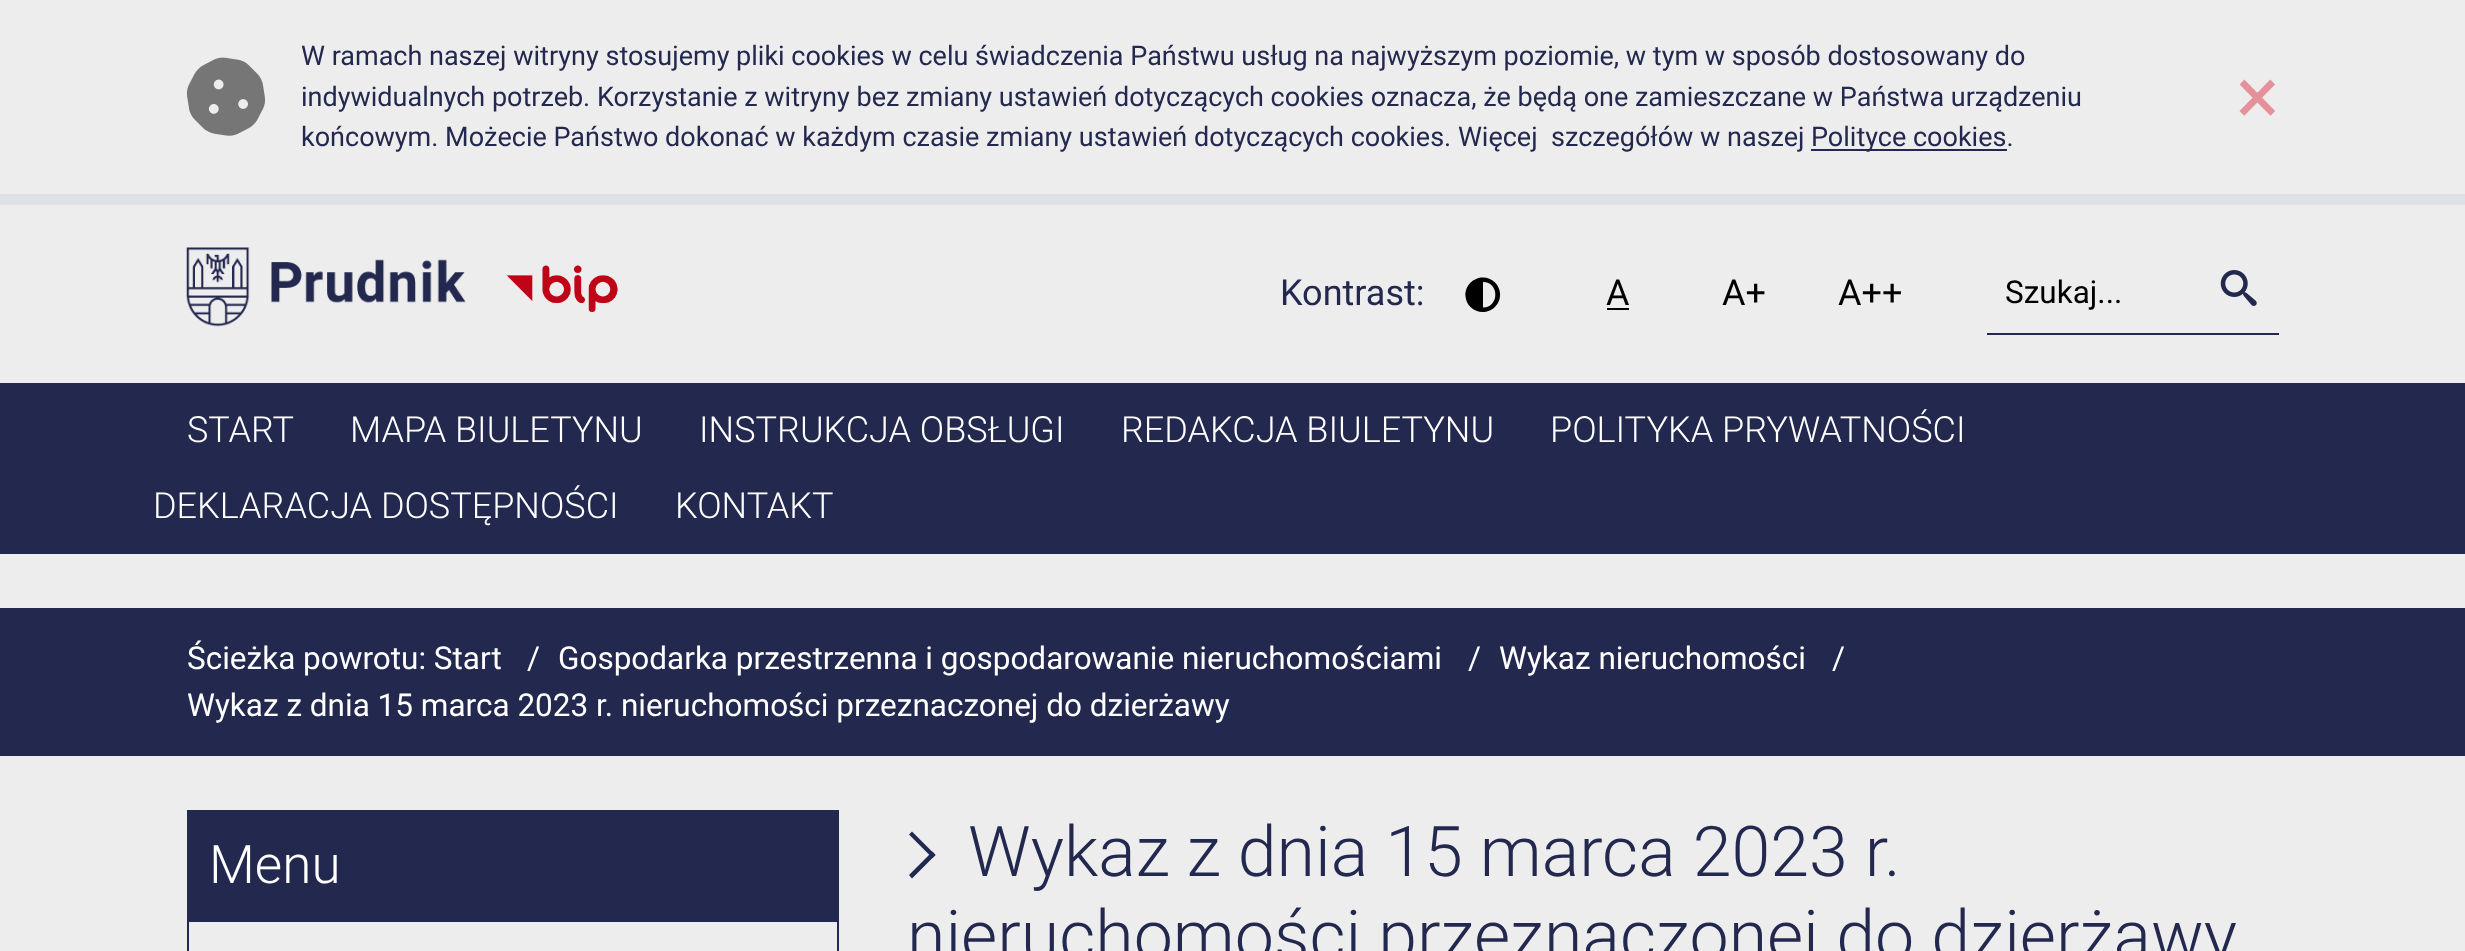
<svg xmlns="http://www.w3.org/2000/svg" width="2465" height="951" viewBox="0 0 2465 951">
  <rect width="100%" height="100%" fill="rgb(237,237,237)"/>
  <rect x="0" y="194" width="2465" height="11" fill="rgb(222,226,230)"/>
  <image x="186" y="57" width="80" height="79" href="pic1.png"/>
  <g font-family="Roboto" font-size="27" fill="rgb(35,40,79)">
    <text xml:space="preserve"><tspan x="301" y="65">W ramach naszej witryny stosujemy pliki cookies w celu świadczenia Państwu usług na najwyższym poziomie, w tym w sposób dostosowany do</tspan><tspan x="301" y="106">indywidualnych potrzeb. Korzystanie z witryny bez zmiany ustawień dotyczących cookies oznacza, że będą one zamieszczane w Państwa urządzeniu</tspan><tspan x="301" y="146">końcowym. Możecie Państwo dokonać w każdym czasie zmiany ustawień dotyczących cookies. Więcej  szczegółów w naszej</tspan></text>
  </g>
  <rect x="1811" y="149" width="196" height="2" fill="rgb(35,40,79)"/>
  <text x="1811" y="146" font-family="Roboto" font-size="27" fill="rgb(35,40,79)">Polityce cookies.</text>
  <text x="2236" y="124" font-family="Roboto" font-size="81" fill="rgb(229,145,153)">×</text>
  <image x="186" y="247" width="280" height="80" href="pic2.png"/>
  <image x="506" y="265" width="112" height="47" href="pic3.png"/>
  <text x="1280" y="305" font-family="Roboto" font-size="36" fill="rgb(35,40,79)">Kontrast:</text>
  <path d="M1470.5 307C1467.5 304 1466 300.5 1465.5 296.5C1464 280.5 1483.5 271 1495 282.5C1498 285.5 1499.5 289 1500 293C1501.5 309 1482 318.5 1470.5 307ZM1483 307.5C1499.5 307.5 1499.5 282 1483 282Z" fill="rgb(0,0,0)"/>
  <text x="1606" y="305" font-family="Roboto" font-size="36" fill="rgb(0,0,0)">A</text>
  <rect x="1607" y="308" width="22" height="2" fill="rgb(0,0,0)"/>
  <g font-family="Roboto" font-size="36" fill="rgb(0,0,0)">
    <text x="1722" y="305">A+</text>
    <text x="1838" y="305">A++</text>
  </g>
  <rect x="1987" y="333" width="292" height="2" fill="rgb(35,40,79)"/>
  <text x="2005" y="303" font-family="Roboto" font-size="31.5" fill="rgb(0,0,0)">Szukaj...</text>
  <image x="2220" y="270" width="37" height="36" href="pic4.png"/>
  <rect x="0" y="383" width="2465" height="171" fill="rgb(35,40,79)"/>
  <g font-family="Roboto" font-size="36" font-weight="300" fill="rgb(255,255,255)">
    <text x="187" y="442">START</text>
    <text x="350" y="442">MAPA BIULETYNU</text>
    <text x="699" y="442">INSTRUKCJA OBSŁUGI</text>
    <text x="1121" y="442">REDAKCJA BIULETYNU</text>
    <text x="1550" y="442">POLITYKA PRYWATNOŚCI</text>
    <text x="153" y="518">DEKLARACJA DOSTĘPNOŚCI</text>
    <text x="675" y="518">KONTAKT</text>
  </g>
  <rect x="0" y="608" width="2465" height="148" fill="rgb(35,40,79)"/>
  <g font-family="Roboto" font-size="31.5" fill="rgb(255,255,255)">
    <text x="187" y="669">Ścieżka powrotu: Start</text>
    <text x="527" y="669">/</text>
    <text x="558" y="669">Gospodarka przestrzenna i gospodarowanie nieruchomościami</text>
    <text x="1468" y="669">/</text>
    <text x="1499" y="669">Wykaz nieruchomości</text>
    <text x="1832" y="669">/</text>
    <text x="187" y="716">Wykaz z dnia 15 marca 2023 r. nieruchomości przeznaczonej do dzierżawy</text>
  </g>
  <rect x="187" y="810" width="652" height="110" fill="rgb(35,40,79)"/>
  <text x="209" y="883" font-family="Roboto" font-size="53" font-weight="300" fill="rgb(255,255,255)">Menu</text>
  <rect x="188" y="921" width="650" height="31" fill="none" stroke="rgb(35,40,79)" stroke-width="2"/>
  <path d="M909 834.5L912 831.5L935.5 855L932.5 858Z" fill="rgb(35,40,79)"/>
  <path d="M909 875L932.5 851.5L935.5 855L912 878.5Z" fill="rgb(35,40,79)"/>
  <g font-family="Roboto" font-size="69.9" font-weight="300" fill="rgb(35,40,79)">
    <text x="968" y="876">Wykaz z dnia 15 marca 2023 r.</text>
    <text x="907" y="960">nieruchomości przeznaczonej do dzierżawy</text>
  </g>
</svg>
